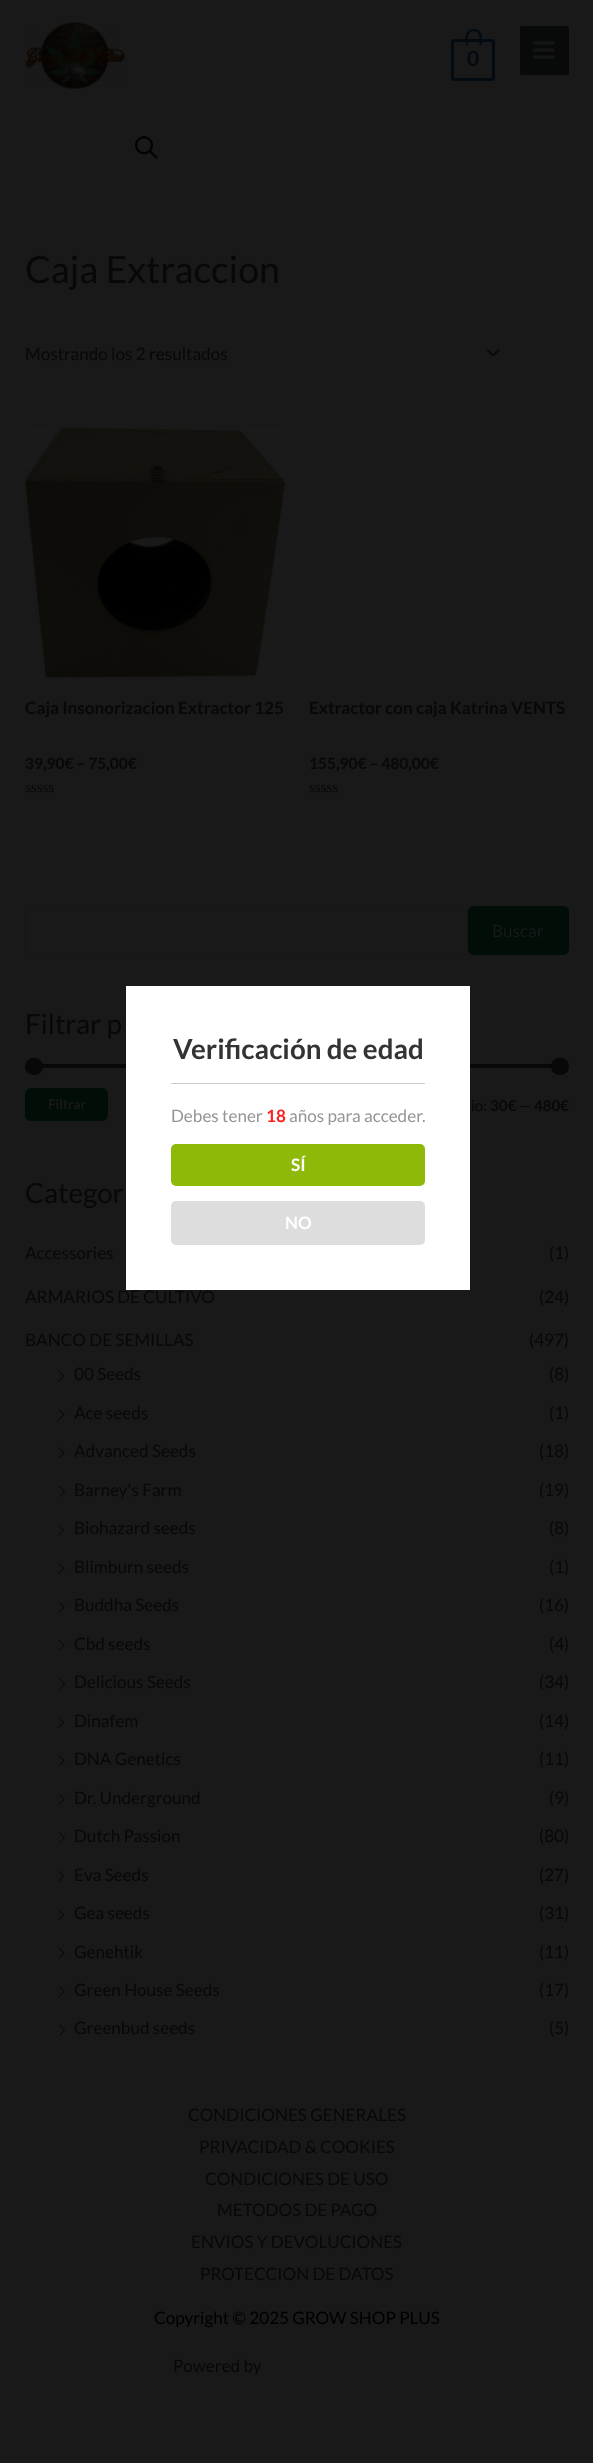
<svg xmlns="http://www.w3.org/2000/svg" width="593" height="2463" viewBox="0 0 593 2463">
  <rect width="100%" height="100%" fill="rgb(25,25,25)"/>
  <image x="25" y="22" width="100" height="67" href="pic1.png"/>
  <rect x="452.5" y="40.5" width="41" height="39" rx="2.5" fill="none" stroke="rgb(3,11,18)" stroke-width="3"/>
  <path d="M473.5 29C478 29 482 32.5 482 37V45H465.5V37C465.5 32.5 469 29 473.5 29ZM473.5 31C481 31 479.5 40.5 479.5 45H468C468 40.5 466.5 31 473.5 31Z" fill="rgb(3,11,18)" fill-rule="evenodd"/>
  <text x="467" y="66" font-family="Lato" font-size="21" font-weight="bold" fill="rgb(3,11,18)">0</text>
  <rect x="520" y="26" width="49" height="49" rx="2.5" fill="rgb(8,9,9)"/>
  <image x="533" y="41" width="22" height="18" href="pic2.png"/>
  <image x="135" y="136" width="23" height="23" href="pic3.png"/>
  <text x="25" y="283" font-family="Lato" font-size="37.5" fill="rgb(8,8,8)">Caja Extraccion</text>
  <text x="25" y="360" font-family="Lato" font-size="17.1" fill="rgb(8,8,8)">Mostrando los 2 resultados</text>
  <image x="486" y="349" width="14" height="7" href="pic4.png"/>
  <image x="25" y="427" width="260" height="251" href="pic5.png"/>
  <text x="25" y="714" font-family="Lato" font-size="17.1" font-weight="bold" fill="rgb(8,8,8)">Caja Insonorizacion Extractor 125</text>
  <text x="25" y="769" font-family="Lato" font-size="15.5" font-weight="bold" fill="rgb(8,8,8)">39,90€ – 75,00€</text>
  <text x="25" y="792" font-family="Liberation Serif" font-size="15" fill="rgb(8,8,8)">sssss</text>
  <text x="309" y="714" font-family="Lato" font-size="17.1" font-weight="bold" fill="rgb(8,8,8)">Extractor con caja Katrina VENTS</text>
  <text x="309" y="769" font-family="Lato" font-size="15.5" font-weight="bold" fill="rgb(8,8,8)">155,90€ – 480,00€</text>
  <text x="309" y="792" font-family="Liberation Serif" font-size="15" fill="rgb(8,8,8)">sssss</text>
  <rect x="25.5" y="906.5" width="442" height="48" fill="none" stroke="rgb(22,22,22)"/>
  <rect x="468" y="906" width="101" height="49" rx="6" fill="rgb(1,14,7)"/>
  <text x="492" y="937" font-family="Lato" font-size="17.1" fill="rgb(25,25,25)">Buscar</text>
  <text x="25" y="1034" font-family="Lato" font-size="27.75" fill="rgb(8,8,8)">Filtrar p</text>
  <rect x="34" y="1064" width="526" height="4" fill="rgb(8,8,8)"/>
  <rect x="25" y="1058" width="18" height="17" rx="8.5" fill="rgb(8,8,8)"/>
  <rect x="551" y="1058" width="18" height="17" rx="8.5" fill="rgb(8,8,8)"/>
  <rect x="25" y="1088" width="83" height="33" rx="6" fill="rgb(1,14,7)"/>
  <text x="48" y="1109" font-family="Lato" font-size="13.5" font-weight="bold" fill="rgb(25,25,25)">Filtrar</text>
  <text x="471" y="1111" font-family="Lato" font-size="15" fill="rgb(8,8,8)">io:</text>
  <text x="490" y="1111" font-family="Lato" font-size="15" font-weight="bold" fill="rgb(8,8,8)">30€</text>
  <text x="519" y="1111" font-family="Lato" font-size="15" fill="rgb(8,8,8)">—</text>
  <text x="534" y="1111" font-family="Lato" font-size="15" font-weight="bold" fill="rgb(8,8,8)">480€</text>
  <text x="25" y="1203" font-family="Lato" font-size="27.75" fill="rgb(8,8,8)">Categor</text>
  <g font-family="Lato" font-size="17.1" fill="rgb(8,8,8)">
    <text x="25" y="1259">Accessories</text>
    <text x="549" y="1259">(1)</text>
    <text x="25" y="1303">ARMARIOS DE CULTIVO</text>
    <text x="539" y="1303">(24)</text>
    <text x="25" y="1346">BANCO DE SEMILLAS</text>
    <text x="529" y="1346">(497)</text>
  </g>
  <image x="58" y="1370" width="6" height="12" href="pic6.png"/>
  <g font-family="Lato" font-size="17.1" fill="rgb(8,8,8)">
    <text x="74" y="1380">00 Seeds</text>
    <text x="549" y="1380">(8)</text>
  </g>
  <image x="58" y="1409" width="7" height="11" href="pic7.png"/>
  <g font-family="Lato" font-size="17.1" fill="rgb(8,8,8)">
    <text x="74" y="1419">Ace seeds</text>
    <text x="549" y="1419">(1)</text>
  </g>
  <image x="58" y="1447" width="7" height="12" href="pic8.png"/>
  <g font-family="Lato" font-size="17.1" fill="rgb(8,8,8)">
    <text x="74" y="1457">Advanced Seeds</text>
    <text x="539" y="1457">(18)</text>
  </g>
  <image x="59" y="1486" width="6" height="11" href="pic9.png"/>
  <g font-family="Lato" font-size="17.1" fill="rgb(8,8,8)">
    <text x="74" y="1496">Barney's Farm</text>
    <text x="539" y="1496">(19)</text>
  </g>
  <image x="58" y="1524" width="6" height="12" href="pic10.png"/>
  <g font-family="Lato" font-size="17.1" fill="rgb(8,8,8)">
    <text x="74" y="1534">Biohazard seeds</text>
    <text x="549" y="1534">(8)</text>
  </g>
  <image x="58" y="1563" width="7" height="11" href="pic11.png"/>
  <g font-family="Lato" font-size="17.1" fill="rgb(8,8,8)">
    <text x="74" y="1573">Blimburn seeds</text>
    <text x="549" y="1573">(1)</text>
  </g>
  <image x="58" y="1601" width="7" height="12" href="pic12.png"/>
  <g font-family="Lato" font-size="17.1" fill="rgb(8,8,8)">
    <text x="74" y="1611">Buddha Seeds</text>
    <text x="539" y="1611">(16)</text>
  </g>
  <image x="59" y="1640" width="6" height="11" href="pic13.png"/>
  <g font-family="Lato" font-size="17.1" fill="rgb(8,8,8)">
    <text x="74" y="1650">Cbd seeds</text>
    <text x="549" y="1650">(4)</text>
  </g>
  <image x="59" y="1678" width="6" height="12" href="pic14.png"/>
  <g font-family="Lato" font-size="17.1" fill="rgb(8,8,8)">
    <text x="74" y="1688">Delicious Seeds</text>
    <text x="539" y="1688">(34)</text>
  </g>
  <image x="58" y="1717" width="6" height="11" href="pic15.png"/>
  <g font-family="Lato" font-size="17.1" fill="rgb(8,8,8)">
    <text x="74" y="1727">Dinafem</text>
    <text x="539" y="1727">(14)</text>
  </g>
  <image x="58" y="1755" width="7" height="12" href="pic16.png"/>
  <g font-family="Lato" font-size="17.1" fill="rgb(8,8,8)">
    <text x="74" y="1765">DNA Genetics</text>
    <text x="539" y="1765">(11)</text>
  </g>
  <image x="58" y="1794" width="7" height="11" href="pic17.png"/>
  <g font-family="Lato" font-size="17.1" fill="rgb(8,8,8)">
    <text x="74" y="1804">Dr. Underground</text>
    <text x="549" y="1804">(9)</text>
  </g>
  <image x="59" y="1832" width="6" height="12" href="pic18.png"/>
  <g font-family="Lato" font-size="17.1" fill="rgb(8,8,8)">
    <text x="74" y="1842">Dutch Passion</text>
    <text x="539" y="1842">(80)</text>
  </g>
  <image x="58" y="1870" width="6" height="12" href="pic19.png"/>
  <g font-family="Lato" font-size="17.1" fill="rgb(8,8,8)">
    <text x="74" y="1881">Eva Seeds</text>
    <text x="539" y="1881">(27)</text>
  </g>
  <image x="58" y="1909" width="7" height="12" href="pic20.png"/>
  <g font-family="Lato" font-size="17.1" fill="rgb(8,8,8)">
    <text x="74" y="1919">Gea seeds</text>
    <text x="539" y="1919">(31)</text>
  </g>
  <image x="58" y="1947" width="7" height="12" href="pic21.png"/>
  <g font-family="Lato" font-size="17.1" fill="rgb(8,8,8)">
    <text x="74" y="1958">Genehtik</text>
    <text x="539" y="1958">(11)</text>
  </g>
  <image x="58" y="1986" width="7" height="11" href="pic22.png"/>
  <g font-family="Lato" font-size="17.1" fill="rgb(8,8,8)">
    <text x="74" y="1996">Green House Seeds</text>
    <text x="539" y="1996">(17)</text>
  </g>
  <image x="59" y="2024" width="6" height="12" href="pic23.png"/>
  <g font-family="Lato" font-size="17.1" fill="rgb(8,8,8)">
    <text x="74" y="2034">Greenbud seeds</text>
    <text x="549" y="2034">(5)</text>
    <text x="188" y="2121">CONDICIONES GENERALES</text>
    <text x="199" y="2153">PRIVACIDAD &amp; COOKIES</text>
    <text x="205" y="2185">CONDICIONES DE USO</text>
    <text x="217" y="2216">METODOS DE PAGO</text>
    <text x="191" y="2248">ENVIOS Y DEVOLUCIONES</text>
    <text x="200" y="2280">PROTECCION DE DATOS</text>
  </g>
  <text x="154" y="2324" font-family="Lato" font-size="17.1" fill="rgb(0,0,0)">Copyright © 2025 GROW SHOP PLUS</text>
  <text x="173" y="2372" font-family="Lato" font-size="17.1" fill="rgb(8,8,8)">Powered by</text>
  <rect x="126" y="986" width="344" height="304" fill="rgb(255,255,255)"/>
  <rect x="171" y="1083" width="254" height="1" fill="rgb(204,204,204)"/>
  <text x="173" y="1059" font-family="Lato" font-size="27.75" font-weight="bold" fill="rgb(51,51,51)">Verificación de edad</text>
  <text x="171" y="1122" font-family="Lato" font-size="17.1" fill="rgb(149,149,149)">Debes tener</text>
  <text x="266" y="1122" font-family="Lato" font-size="17.1" font-weight="bold" fill="rgb(255,31,31)">18</text>
  <text x="289" y="1122" font-family="Lato" font-size="17.1" fill="rgb(149,149,149)">años para acceder.</text>
  <rect x="171" y="1144" width="254" height="42" rx="5" fill="rgb(142,185,8)"/>
  <text x="291" y="1171" font-family="Lato" font-size="17.1" font-weight="bold" fill="rgb(255,255,255)">SÍ</text>
  <rect x="171" y="1201" width="254" height="44" rx="5" fill="rgb(221,221,221)"/>
  <text x="285" y="1229" font-family="Lato" font-size="17.1" font-weight="bold" fill="rgb(255,255,255)">NO</text>
</svg>
